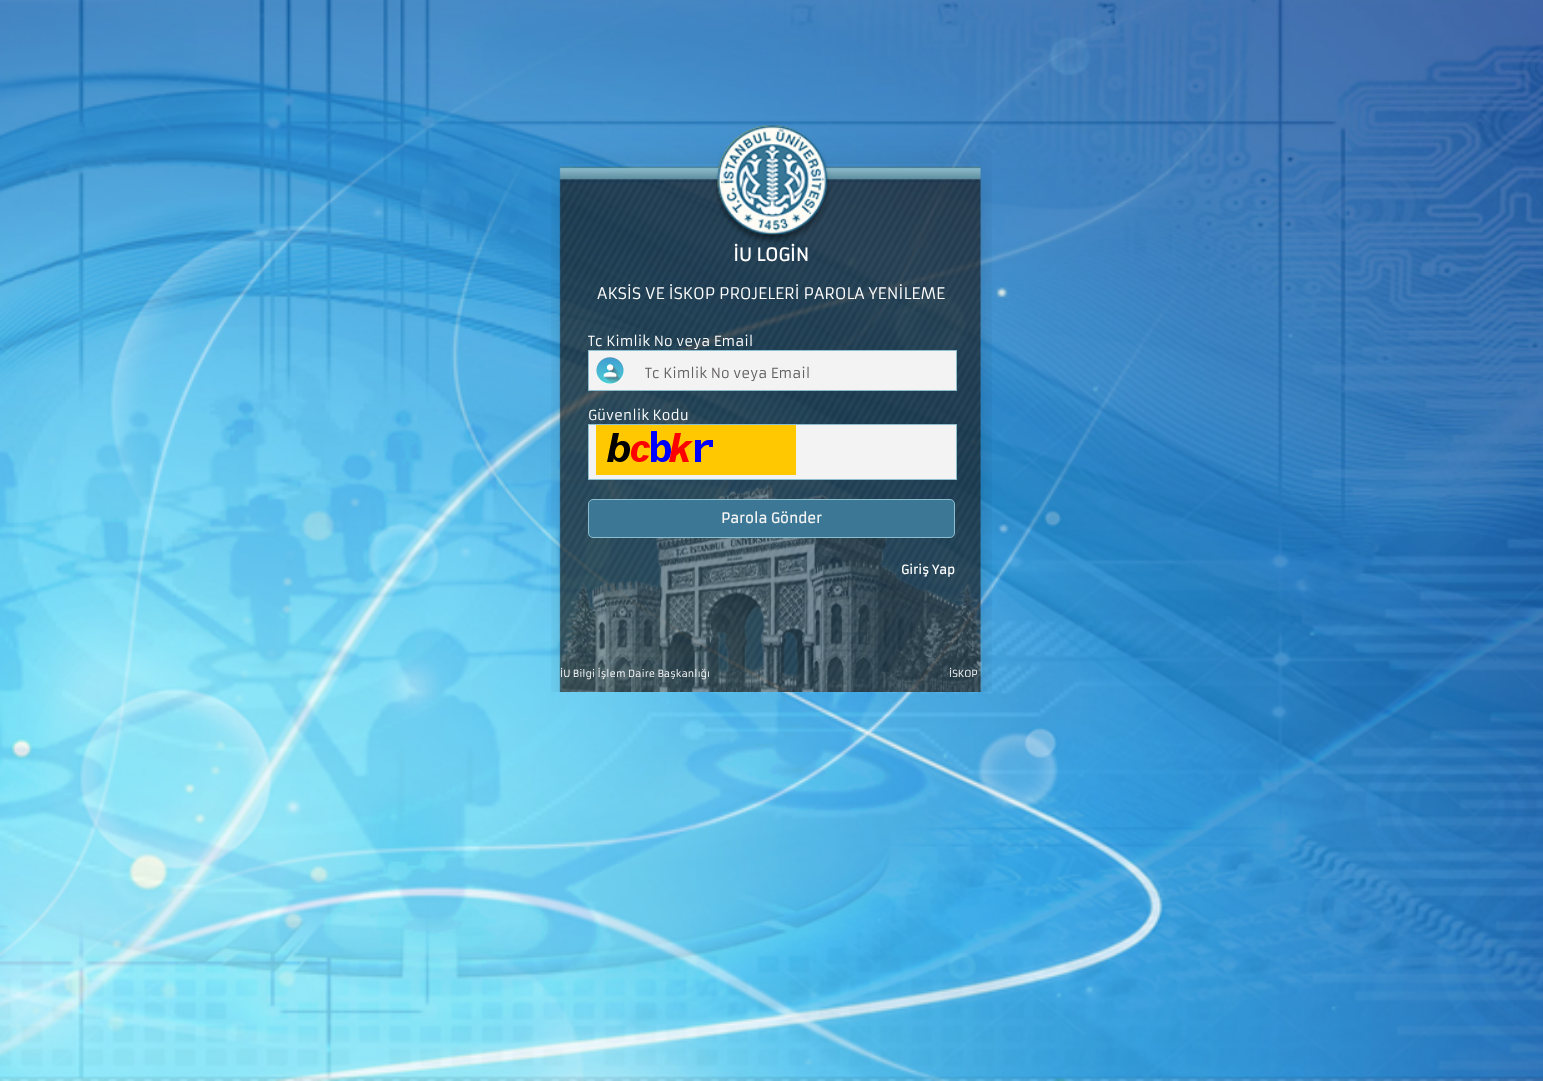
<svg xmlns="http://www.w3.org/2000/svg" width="1543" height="1081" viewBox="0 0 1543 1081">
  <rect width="100%" height="100%" fill="rgb(255,255,255)"/>
  <image x="0" y="0" width="1543" height="1081" href="pic1.png"/>
  <image x="551" y="125" width="441" height="567" href="pic2.png"/>
  <text x="733" y="261" font-family="Armata" font-size="17.5" font-weight="bold" fill="rgb(255,255,255)">İU LOGİN</text>
  <text x="597" y="299" font-family="Armata" font-size="15.6" fill="rgb(255,255,255)">AKSİS VE İSKOP PROJELERİ PAROLA YENİLEME</text>
  <text x="588" y="346" font-family="Armata" font-size="13.6" fill="rgb(255,255,255)">Tc Kimlik No veya Email</text>
  <rect x="588.5" y="350.5" width="368" height="40" fill="rgb(243,243,243)" stroke="rgb(139,190,207)"/>
  <image x="596" y="357" width="28" height="27" href="pic3.png"/>
  <text x="645" y="378" font-family="Armata" font-size="13.6" fill="rgb(97,95,95)">Tc Kimlik No veya Email</text>
  <text x="588" y="420" font-family="Armata" font-size="13.6" fill="rgb(255,255,255)">Güvenlik Kodu</text>
  <rect x="588.5" y="424.5" width="368" height="55" fill="rgb(243,243,243)" stroke="rgb(139,190,207)"/>
  <image x="596" y="425" width="200" height="50" href="pic4.png"/>
  <rect x="588.5" y="499.5" width="366" height="38" rx="4.5" fill="rgb(60,120,150)" stroke="rgb(139,190,207)"/>
  <text x="721" y="523" font-family="Armata" font-size="13.6" font-weight="bold" fill="rgb(243,243,243)">Parola Gönder</text>
  <text x="901" y="574" font-family="Armata" font-size="12" font-weight="bold" fill="rgb(255,255,255)">Giriş Yap</text>
  <g font-family="Armata" font-size="9.6" fill="rgb(255,255,255)">
    <text x="560" y="677">İU Bilgi İşlem Daire Başkanlığı</text>
    <text x="949" y="677">İSKOP</text>
  </g>
</svg>
